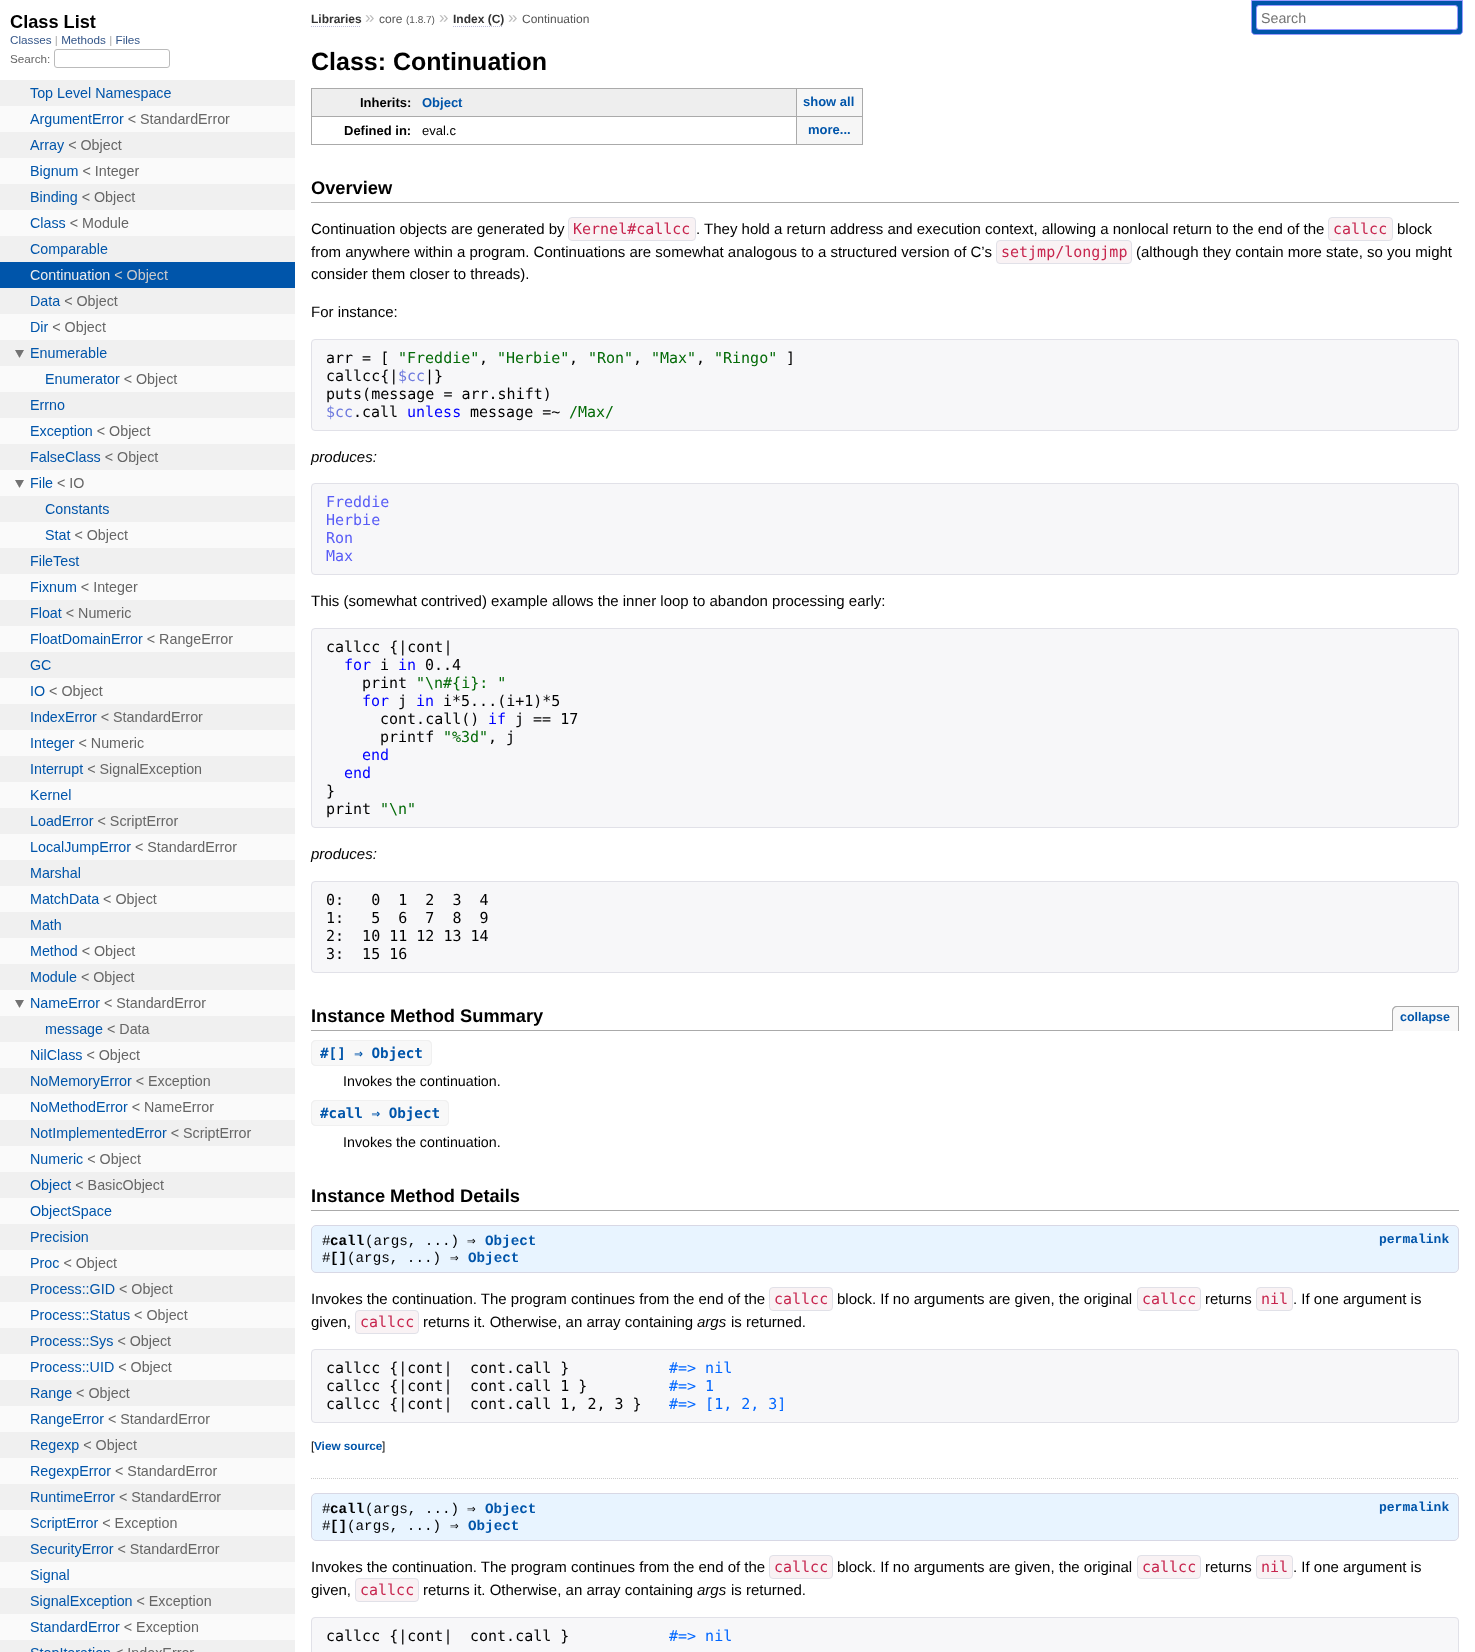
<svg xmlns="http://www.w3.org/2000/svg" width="1475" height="1652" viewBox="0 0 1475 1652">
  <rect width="100%" height="100%" fill="rgb(255,255,255)"/>
  <image x="0" y="15" width="295" height="1637" href="pic1.png"/>
  <text x="311" y="23" font-family="Liberation Sans" font-size="12" font-weight="bold" fill="rgb(51,51,51)">Libraries</text>
  <path d="M311 26.5H361" fill="none" stroke="rgb(187,187,221)" stroke-dasharray="1 1"/>
  <text x="365" y="23" font-family="Liberation Sans" font-size="17" fill="rgb(187,187,187)">»</text>
  <text x="379" y="23" font-family="Liberation Sans" font-size="12" fill="rgb(85,85,85)">core</text>
  <text x="406" y="23" font-family="Liberation Sans" font-size="10" fill="rgb(85,85,85)">(1.8.7)</text>
  <text x="439" y="23" font-family="Liberation Sans" font-size="17" fill="rgb(187,187,187)">»</text>
  <text x="453" y="23" font-family="Liberation Sans" font-size="12" font-weight="bold" fill="rgb(51,51,51)">Index (C)</text>
  <path d="M453 26.5H503" fill="none" stroke="rgb(187,187,221)" stroke-dasharray="1 1"/>
  <text x="508" y="23" font-family="Liberation Sans" font-size="17" fill="rgb(187,187,187)">»</text>
  <text x="522" y="23" font-family="Liberation Sans" font-size="12" fill="rgb(85,85,85)">Continuation</text>
  <path d="M1251.5 .5H1462.5V31C1462.5 33 1461 34.5 1459 34.5H1255C1253 34.5 1251.5 33 1251.5 31Z" fill="rgb(0,85,170)" stroke="rgb(153,153,255)"/>
  <rect x="1256.5" y="5.5" width="201" height="24" rx="2.5" fill="rgb(255,255,255)" stroke="rgb(153,153,255)"/>
  <text x="1261" y="23" font-family="Liberation Sans" font-size="14.25" fill="rgb(117,117,117)">Search</text>
  <text x="311" y="70" font-family="Liberation Sans" font-size="25" font-weight="bold" fill="rgb(0,0,0)">Class: Continuation</text>
  <rect x="312" y="89" width="484" height="27" fill="rgb(238,238,238)"/>
  <rect x="311" y="88" width="552" height="1" fill="rgb(170,170,170)"/>
  <rect x="311" y="88" width="1" height="28" fill="rgb(170,170,170)"/>
  <text x="360" y="107" font-family="Liberation Sans" font-size="13" font-weight="bold" fill="rgb(0,0,0)">Inherits:</text>
  <rect x="311" y="116" width="552" height="1" fill="rgb(170,170,170)"/>
  <rect x="862" y="88" width="1" height="57" fill="rgb(170,170,170)"/>
  <text x="422" y="107" font-family="Liberation Sans" font-size="13" font-weight="bold" fill="rgb(0,85,170)">Object</text>
  <rect x="797" y="89" width="65" height="27" fill="rgb(246,246,246)"/>
  <rect x="796" y="89" width="1" height="27" fill="rgb(170,170,170)"/>
  <text x="803" y="106" font-family="Liberation Sans" font-size="13" font-weight="bold" fill="rgb(0,85,170)">show all</text>
  <rect x="311" y="144" width="111" height="1" fill="rgb(170,170,170)"/>
  <rect x="311" y="116" width="1" height="29" fill="rgb(170,170,170)"/>
  <text x="344" y="135" font-family="Liberation Sans" font-size="13" font-weight="bold" fill="rgb(0,0,0)">Defined in:</text>
  <rect x="422" y="144" width="441" height="1" fill="rgb(170,170,170)"/>
  <text x="422" y="135" font-family="Liberation Sans" font-size="13" fill="rgb(0,0,0)">eval.c</text>
  <rect x="797" y="117" width="65" height="27" fill="rgb(246,246,246)"/>
  <rect x="796" y="117" width="1" height="27" fill="rgb(170,170,170)"/>
  <text x="808" y="134" font-family="Liberation Sans" font-size="13" font-weight="bold" fill="rgb(0,85,170)">more...</text>
  <rect x="311" y="202" width="1148" height="1" fill="rgb(170,170,170)"/>
  <text x="311" y="194" font-family="Liberation Sans" font-size="18.25" font-weight="bold" fill="rgb(0,0,0)">Overview</text>
  <text x="311" y="234" font-family="Liberation Sans" font-size="15" fill="rgb(0,0,0)">Continuation objects are generated by</text>
  <rect x="568.5" y="217.5" width="127" height="23" rx="3.5" fill="rgb(249,242,244)" stroke="rgb(225,225,232)"/>
  <text x="573" y="234" font-family="DejaVu Sans Mono" font-size="15" fill="rgb(199,37,78)">Kernel#callcc</text>
  <text x="696" y="234" font-family="Liberation Sans" font-size="15" fill="rgb(0,0,0)">. They hold a return address and execution context, allowing a nonlocal return to the end of the</text>
  <rect x="1328.5" y="217.5" width="64" height="23" rx="3.5" fill="rgb(249,242,244)" stroke="rgb(225,225,232)"/>
  <text x="1333" y="234" font-family="DejaVu Sans Mono" font-size="15" fill="rgb(199,37,78)">callcc</text>
  <g font-family="Liberation Sans" font-size="15" fill="rgb(0,0,0)">
    <text x="1397" y="234">block</text>
    <text x="311" y="257">from anywhere within a program. Continuations are somewhat analogous to a structured version of C’s</text>
  </g>
  <rect x="996.5" y="240.5" width="135" height="23" rx="3.5" fill="rgb(249,242,244)" stroke="rgb(225,225,232)"/>
  <text x="1001" y="257" font-family="DejaVu Sans Mono" font-size="15" fill="rgb(199,37,78)">setjmp/longjmp</text>
  <g font-family="Liberation Sans" font-size="15" fill="rgb(0,0,0)">
    <text x="1136" y="257">(although they contain more state, so you might</text>
    <text x="311" y="279">consider them closer to threads).</text>
    <text x="311" y="317">For instance:</text>
  </g>
  <rect x="311.5" y="339.5" width="1147" height="91" rx="3.5" fill="rgb(247,247,249)" stroke="rgb(225,225,232)"/>
  <text x="326" y="363" font-family="DejaVu Sans Mono" font-size="15" fill="rgb(0,0,0)">arr = [</text>
  <text x="398" y="363" font-family="DejaVu Sans Mono" font-size="15" fill="rgb(3,106,7)">"Freddie"</text>
  <text x="479" y="363" font-family="DejaVu Sans Mono" font-size="15" fill="rgb(0,0,0)">,</text>
  <text x="497" y="363" font-family="DejaVu Sans Mono" font-size="15" fill="rgb(3,106,7)">"Herbie"</text>
  <text x="569" y="363" font-family="DejaVu Sans Mono" font-size="15" fill="rgb(0,0,0)">,</text>
  <text x="588" y="363" font-family="DejaVu Sans Mono" font-size="15" fill="rgb(3,106,7)">"Ron"</text>
  <text x="633" y="363" font-family="DejaVu Sans Mono" font-size="15" fill="rgb(0,0,0)">,</text>
  <text x="651" y="363" font-family="DejaVu Sans Mono" font-size="15" fill="rgb(3,106,7)">"Max"</text>
  <text x="696" y="363" font-family="DejaVu Sans Mono" font-size="15" fill="rgb(0,0,0)">,</text>
  <text x="714" y="363" font-family="DejaVu Sans Mono" font-size="15" fill="rgb(3,106,7)">"Ringo"</text>
  <g font-family="DejaVu Sans Mono" font-size="15" fill="rgb(0,0,0)">
    <text x="786" y="363">]</text>
    <text x="326" y="381">callcc{|</text>
  </g>
  <text x="398" y="381" font-family="DejaVu Sans Mono" font-size="15" fill="rgb(109,121,222)">$cc</text>
  <g font-family="DejaVu Sans Mono" font-size="15" fill="rgb(0,0,0)">
    <text x="425" y="381">|}</text>
    <text x="326" y="399">puts(message = arr.shift)</text>
  </g>
  <text x="326" y="417" font-family="DejaVu Sans Mono" font-size="15" fill="rgb(109,121,222)">$cc</text>
  <text x="353" y="417" font-family="DejaVu Sans Mono" font-size="15" fill="rgb(0,0,0)">.call</text>
  <text x="407" y="417" font-family="DejaVu Sans Mono" font-size="15" fill="rgb(0,0,255)">unless</text>
  <text x="470" y="417" font-family="DejaVu Sans Mono" font-size="15" fill="rgb(0,0,0)">message =~</text>
  <text x="569" y="417" font-family="DejaVu Sans Mono" font-size="15" fill="rgb(3,106,7)">/Max/</text>
  <text x="311" y="462" font-family="Liberation Sans" font-size="15" font-style="italic" fill="rgb(0,0,0)">produces:</text>
  <rect x="311.5" y="483.5" width="1147" height="91" rx="3.5" fill="rgb(247,247,249)" stroke="rgb(225,225,232)"/>
  <g font-family="DejaVu Sans Mono" font-size="15" fill="rgb(88,92,246)">
    <text>
      <tspan x="326" y="507">Freddie</tspan>
      <tspan x="326" y="525">Herbie</tspan>
      <tspan x="326" y="543">Ron</tspan>
      <tspan x="326" y="561">Max</tspan>
    </text>
  </g>
  <text x="311" y="606" font-family="Liberation Sans" font-size="15" fill="rgb(0,0,0)">This (somewhat contrived) example allows the inner loop to abandon processing early:</text>
  <rect x="311.5" y="628.5" width="1147" height="199" rx="3.5" fill="rgb(247,247,249)" stroke="rgb(225,225,232)"/>
  <text x="326" y="652" font-family="DejaVu Sans Mono" font-size="15" fill="rgb(0,0,0)">callcc {|cont|</text>
  <text x="344" y="670" font-family="DejaVu Sans Mono" font-size="15" fill="rgb(0,0,255)">for</text>
  <text x="380" y="670" font-family="DejaVu Sans Mono" font-size="15" fill="rgb(0,0,0)">i</text>
  <text x="398" y="670" font-family="DejaVu Sans Mono" font-size="15" fill="rgb(0,0,255)">in</text>
  <g font-family="DejaVu Sans Mono" font-size="15" fill="rgb(0,0,0)">
    <text x="425" y="670">0..4</text>
    <text x="362" y="688">print</text>
  </g>
  <text x="416" y="688" font-family="DejaVu Sans Mono" font-size="15" fill="rgb(3,106,7)">"\n#{i}: "</text>
  <text x="362" y="706" font-family="DejaVu Sans Mono" font-size="15" fill="rgb(0,0,255)">for</text>
  <text x="398" y="706" font-family="DejaVu Sans Mono" font-size="15" fill="rgb(0,0,0)">j</text>
  <text x="416" y="706" font-family="DejaVu Sans Mono" font-size="15" fill="rgb(0,0,255)">in</text>
  <g font-family="DejaVu Sans Mono" font-size="15" fill="rgb(0,0,0)">
    <text x="443" y="706">i*5...(i+1)*5</text>
    <text x="380" y="724">cont.call()</text>
  </g>
  <text x="488" y="724" font-family="DejaVu Sans Mono" font-size="15" fill="rgb(0,0,255)">if</text>
  <g font-family="DejaVu Sans Mono" font-size="15" fill="rgb(0,0,0)">
    <text x="515" y="724">j == 17</text>
    <text x="380" y="742">printf</text>
  </g>
  <text x="443" y="742" font-family="DejaVu Sans Mono" font-size="15" fill="rgb(3,106,7)">"%3d"</text>
  <text x="488" y="742" font-family="DejaVu Sans Mono" font-size="15" fill="rgb(0,0,0)">, j</text>
  <g font-family="DejaVu Sans Mono" font-size="15" fill="rgb(0,0,255)">
    <text x="362" y="760">end</text>
    <text x="344" y="778">end</text>
  </g>
  <g font-family="DejaVu Sans Mono" font-size="15" fill="rgb(0,0,0)">
    <text>
      <tspan x="326" y="796">}</tspan>
      <tspan x="326" y="814">print</tspan>
    </text>
  </g>
  <text x="380" y="814" font-family="DejaVu Sans Mono" font-size="15" fill="rgb(3,106,7)">"\n"</text>
  <text x="311" y="859" font-family="Liberation Sans" font-size="15" font-style="italic" fill="rgb(0,0,0)">produces:</text>
  <rect x="311.5" y="881.5" width="1147" height="91" rx="3.5" fill="rgb(247,247,249)" stroke="rgb(225,225,232)"/>
  <g font-family="DejaVu Sans Mono" font-size="15" fill="rgb(0,0,0)">
    <text xml:space="preserve"><tspan x="326" y="905">0:   0  1  2  3  4</tspan><tspan x="326" y="923">1:   5  6  7  8  9</tspan><tspan x="326" y="941">2:  10 11 12 13 14</tspan><tspan x="326" y="959">3:  15 16</tspan></text>
  </g>
  <rect x="311" y="1030" width="1081" height="1" fill="rgb(170,170,170)"/>
  <text x="311" y="1022" font-family="Liberation Sans" font-size="18.25" font-weight="bold" fill="rgb(0,0,0)">Instance Method Summary</text>
  <path d="M1397 1006H1459V1031H1392V1011C1392 1008 1394 1006 1397 1006Z" fill="rgb(248,248,248)"/>
  <path d="M1397 1006H1459V1031H1392V1011C1392 1008 1394 1006 1397 1006ZM1397 1007H1458V1031H1393V1011C1393 1009 1395 1007 1397 1007Z" fill="rgb(170,170,170)" fill-rule="evenodd"/>
  <text x="1400" y="1021" font-family="Liberation Sans" font-size="12.5" font-weight="bold" fill="rgb(0,85,170)">collapse</text>
  <path d="M316 1040H328V1066H316C313 1066 311 1064 311 1061V1045C311 1042 313 1040 316 1040Z" fill="rgb(248,248,248)"/>
  <path d="M316 1040H328V1066H316C313 1066 311 1064 311 1061V1045C311 1042 313 1040 316 1040ZM316 1041H328V1065H316C314 1065 312 1063 312 1061V1045C312 1043 314 1041 316 1041Z" fill="rgb(240,240,240)" fill-rule="evenodd"/>
  <rect x="328" y="1041" width="17" height="24" fill="rgb(248,248,248)"/>
  <path d="M345 1040H427C430 1040 432 1042 432 1045V1061C432 1064 430 1066 427 1066H345Z" fill="rgb(248,248,248)"/>
  <path d="M345 1040H427C430 1040 432 1042 432 1045V1061C432 1064 430 1066 427 1066H345ZM345 1041H427C429 1041 431 1043 431 1045V1061C431 1063 429 1065 427 1065H345Z" fill="rgb(240,240,240)" fill-rule="evenodd"/>
  <text x="320" y="1058" font-family="DejaVu Sans Mono" font-size="14.25" font-weight="bold" fill="rgb(0,85,170)">#[] ⇒ Object</text>
  <rect x="328" y="1040" width="17" height="1" fill="rgb(240,240,240)"/>
  <rect x="328" y="1065" width="17" height="1" fill="rgb(240,240,240)"/>
  <text x="343" y="1086" font-family="Liberation Sans" font-size="14.25" fill="rgb(0,0,0)">Invokes the continuation.</text>
  <path d="M316 1100H328V1126H316C313 1126 311 1124 311 1121V1105C311 1102 313 1100 316 1100Z" fill="rgb(248,248,248)"/>
  <path d="M316 1100H328V1126H316C313 1126 311 1124 311 1121V1105C311 1102 313 1100 316 1100ZM316 1101H328V1125H316C314 1125 312 1123 312 1121V1105C312 1103 314 1101 316 1101Z" fill="rgb(240,240,240)" fill-rule="evenodd"/>
  <rect x="328" y="1101" width="35" height="24" fill="rgb(248,248,248)"/>
  <path d="M363 1100H444C447 1100 449 1102 449 1105V1121C449 1124 447 1126 444 1126H363Z" fill="rgb(248,248,248)"/>
  <path d="M363 1100H444C447 1100 449 1102 449 1105V1121C449 1124 447 1126 444 1126H363ZM363 1101H444C446 1101 448 1103 448 1105V1121C448 1123 446 1125 444 1125H363Z" fill="rgb(240,240,240)" fill-rule="evenodd"/>
  <text x="320" y="1118" font-family="DejaVu Sans Mono" font-size="14.25" font-weight="bold" fill="rgb(0,85,170)">#call ⇒ Object</text>
  <rect x="328" y="1100" width="35" height="1" fill="rgb(240,240,240)"/>
  <rect x="328" y="1125" width="35" height="1" fill="rgb(240,240,240)"/>
  <text x="343" y="1147" font-family="Liberation Sans" font-size="14.25" fill="rgb(0,0,0)">Invokes the continuation.</text>
  <rect x="311" y="1210" width="1148" height="1" fill="rgb(170,170,170)"/>
  <text x="311" y="1202" font-family="Liberation Sans" font-size="18.25" font-weight="bold" fill="rgb(0,0,0)">Instance Method Details</text>
  <rect x="311.5" y="1225.5" width="1147" height="47" rx="4.5" fill="rgb(232,244,255)" stroke="rgb(216,216,229)"/>
  <text x="322" y="1245" font-family="Liberation Mono" font-size="14.25" fill="rgb(0,0,0)">#</text>
  <text x="330" y="1245" font-family="Liberation Mono" font-size="14.25" font-weight="bold" fill="rgb(0,0,0)">call</text>
  <text x="365" y="1245" font-family="Liberation Mono" font-size="14.25" fill="rgb(0,0,0)">(args, ...)</text>
  <text x="467" y="1245" font-family="DejaVu Sans Mono" font-size="14.25" fill="rgb(0,0,0)">⇒</text>
  <text x="485" y="1245" font-family="Liberation Mono" font-size="14.25" font-weight="bold" fill="rgb(0,85,170)">Object</text>
  <text x="1379" y="1243" font-family="Liberation Mono" font-size="13" font-weight="bold" fill="rgb(0,85,170)">permalink</text>
  <text x="322" y="1262" font-family="Liberation Mono" font-size="14.25" fill="rgb(0,0,0)">#</text>
  <text x="330" y="1262" font-family="Liberation Mono" font-size="14.25" font-weight="bold" fill="rgb(0,0,0)">[]</text>
  <text x="347" y="1262" font-family="Liberation Mono" font-size="14.25" fill="rgb(0,0,0)">(args, ...)</text>
  <text x="450" y="1262" font-family="DejaVu Sans Mono" font-size="14.25" fill="rgb(0,0,0)">⇒</text>
  <text x="468" y="1262" font-family="Liberation Mono" font-size="14.25" font-weight="bold" fill="rgb(0,85,170)">Object</text>
  <text x="311" y="1304" font-family="Liberation Sans" font-size="15" fill="rgb(0,0,0)">Invokes the continuation. The program continues from the end of the</text>
  <rect x="769.5" y="1287.5" width="63" height="23" rx="3.5" fill="rgb(249,242,244)" stroke="rgb(225,225,232)"/>
  <text x="774" y="1304" font-family="DejaVu Sans Mono" font-size="15" fill="rgb(199,37,78)">callcc</text>
  <text x="837" y="1304" font-family="Liberation Sans" font-size="15" fill="rgb(0,0,0)">block. If no arguments are given, the original</text>
  <rect x="1137.5" y="1287.5" width="63" height="23" rx="3.5" fill="rgb(249,242,244)" stroke="rgb(225,225,232)"/>
  <text x="1142" y="1304" font-family="DejaVu Sans Mono" font-size="15" fill="rgb(199,37,78)">callcc</text>
  <text x="1205" y="1304" font-family="Liberation Sans" font-size="15" fill="rgb(0,0,0)">returns</text>
  <rect x="1256.5" y="1287.5" width="36" height="23" rx="3.5" fill="rgb(249,242,244)" stroke="rgb(225,225,232)"/>
  <text x="1261" y="1304" font-family="DejaVu Sans Mono" font-size="15" fill="rgb(199,37,78)">nil</text>
  <g font-family="Liberation Sans" font-size="15" fill="rgb(0,0,0)">
    <text x="1293" y="1304">. If one argument is</text>
    <text x="311" y="1327">given,</text>
  </g>
  <rect x="355.5" y="1310.5" width="63" height="23" rx="3.5" fill="rgb(249,242,244)" stroke="rgb(225,225,232)"/>
  <text x="360" y="1327" font-family="DejaVu Sans Mono" font-size="15" fill="rgb(199,37,78)">callcc</text>
  <text x="423" y="1327" font-family="Liberation Sans" font-size="15" fill="rgb(0,0,0)">returns it. Otherwise, an array containing</text>
  <text x="697" y="1327" font-family="Liberation Sans" font-size="15" font-style="italic" fill="rgb(0,0,0)">args</text>
  <text x="731" y="1327" font-family="Liberation Sans" font-size="15" fill="rgb(0,0,0)">is returned.</text>
  <rect x="311.5" y="1349.5" width="1147" height="73" rx="3.5" fill="rgb(247,247,249)" stroke="rgb(225,225,232)"/>
  <g font-family="DejaVu Sans Mono" font-size="15" fill="rgb(0,0,0)">
    <text x="326" y="1373">callcc {|cont|</text>
    <text x="470" y="1373">cont.call }</text>
  </g>
  <text x="669" y="1373" font-family="DejaVu Sans Mono" font-size="15" fill="rgb(0,102,255)">#=&gt; nil</text>
  <g font-family="DejaVu Sans Mono" font-size="15" fill="rgb(0,0,0)">
    <text x="326" y="1391">callcc {|cont|</text>
    <text x="470" y="1391">cont.call 1 }</text>
  </g>
  <text x="669" y="1391" font-family="DejaVu Sans Mono" font-size="15" fill="rgb(0,102,255)">#=&gt; 1</text>
  <g font-family="DejaVu Sans Mono" font-size="15" fill="rgb(0,0,0)">
    <text x="326" y="1409">callcc {|cont|</text>
    <text x="470" y="1409">cont.call 1, 2, 3 }</text>
  </g>
  <text x="669" y="1409" font-family="DejaVu Sans Mono" font-size="15" fill="rgb(0,102,255)">#=&gt; [1, 2, 3]</text>
  <text x="311" y="1450" font-family="Liberation Sans" font-size="11.75" fill="rgb(0,0,0)">[</text>
  <text x="314" y="1450" font-family="Liberation Sans" font-size="11.75" font-weight="bold" fill="rgb(0,85,170)">View source</text>
  <text x="382" y="1450" font-family="Liberation Sans" font-size="11.75" fill="rgb(0,0,0)">]</text>
  <path d="M311 1478.5H1459" fill="none" stroke="rgb(204,204,204)" stroke-dasharray="1 1"/>
  <rect x="311.5" y="1493.5" width="1147" height="47" rx="4.5" fill="rgb(232,244,255)" stroke="rgb(216,216,229)"/>
  <text x="322" y="1513" font-family="Liberation Mono" font-size="14.25" fill="rgb(0,0,0)">#</text>
  <text x="330" y="1513" font-family="Liberation Mono" font-size="14.25" font-weight="bold" fill="rgb(0,0,0)">call</text>
  <text x="365" y="1513" font-family="Liberation Mono" font-size="14.25" fill="rgb(0,0,0)">(args, ...)</text>
  <text x="467" y="1513" font-family="DejaVu Sans Mono" font-size="14.25" fill="rgb(0,0,0)">⇒</text>
  <text x="485" y="1513" font-family="Liberation Mono" font-size="14.25" font-weight="bold" fill="rgb(0,85,170)">Object</text>
  <text x="1379" y="1511" font-family="Liberation Mono" font-size="13" font-weight="bold" fill="rgb(0,85,170)">permalink</text>
  <text x="322" y="1530" font-family="Liberation Mono" font-size="14.25" fill="rgb(0,0,0)">#</text>
  <text x="330" y="1530" font-family="Liberation Mono" font-size="14.25" font-weight="bold" fill="rgb(0,0,0)">[]</text>
  <text x="347" y="1530" font-family="Liberation Mono" font-size="14.25" fill="rgb(0,0,0)">(args, ...)</text>
  <text x="450" y="1530" font-family="DejaVu Sans Mono" font-size="14.25" fill="rgb(0,0,0)">⇒</text>
  <text x="468" y="1530" font-family="Liberation Mono" font-size="14.25" font-weight="bold" fill="rgb(0,85,170)">Object</text>
  <text x="311" y="1572" font-family="Liberation Sans" font-size="15" fill="rgb(0,0,0)">Invokes the continuation. The program continues from the end of the</text>
  <rect x="769.5" y="1555.5" width="63" height="23" rx="3.5" fill="rgb(249,242,244)" stroke="rgb(225,225,232)"/>
  <text x="774" y="1572" font-family="DejaVu Sans Mono" font-size="15" fill="rgb(199,37,78)">callcc</text>
  <text x="837" y="1572" font-family="Liberation Sans" font-size="15" fill="rgb(0,0,0)">block. If no arguments are given, the original</text>
  <rect x="1137.5" y="1555.5" width="63" height="23" rx="3.5" fill="rgb(249,242,244)" stroke="rgb(225,225,232)"/>
  <text x="1142" y="1572" font-family="DejaVu Sans Mono" font-size="15" fill="rgb(199,37,78)">callcc</text>
  <text x="1205" y="1572" font-family="Liberation Sans" font-size="15" fill="rgb(0,0,0)">returns</text>
  <rect x="1256.5" y="1555.5" width="36" height="23" rx="3.5" fill="rgb(249,242,244)" stroke="rgb(225,225,232)"/>
  <text x="1261" y="1572" font-family="DejaVu Sans Mono" font-size="15" fill="rgb(199,37,78)">nil</text>
  <g font-family="Liberation Sans" font-size="15" fill="rgb(0,0,0)">
    <text x="1293" y="1572">. If one argument is</text>
    <text x="311" y="1595">given,</text>
  </g>
  <rect x="355.5" y="1578.5" width="63" height="23" rx="3.5" fill="rgb(249,242,244)" stroke="rgb(225,225,232)"/>
  <text x="360" y="1595" font-family="DejaVu Sans Mono" font-size="15" fill="rgb(199,37,78)">callcc</text>
  <text x="423" y="1595" font-family="Liberation Sans" font-size="15" fill="rgb(0,0,0)">returns it. Otherwise, an array containing</text>
  <text x="697" y="1595" font-family="Liberation Sans" font-size="15" font-style="italic" fill="rgb(0,0,0)">args</text>
  <text x="731" y="1595" font-family="Liberation Sans" font-size="15" fill="rgb(0,0,0)">is returned.</text>
  <path d="M315 1617H1455C1457 1617 1459 1619 1459 1621V1652H311V1621C311 1619 313 1617 315 1617Z" fill="rgb(247,247,249)"/>
  <rect x="311.5" y="1617.5" width="1147" height="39" rx="3.5" fill="none" stroke="rgb(225,225,232)"/>
  <g font-family="DejaVu Sans Mono" font-size="15" fill="rgb(0,0,0)">
    <text x="326" y="1641">callcc {|cont|</text>
    <text x="470" y="1641">cont.call }</text>
  </g>
  <text x="669" y="1641" font-family="DejaVu Sans Mono" font-size="15" fill="rgb(0,102,255)">#=&gt; nil</text>
</svg>
